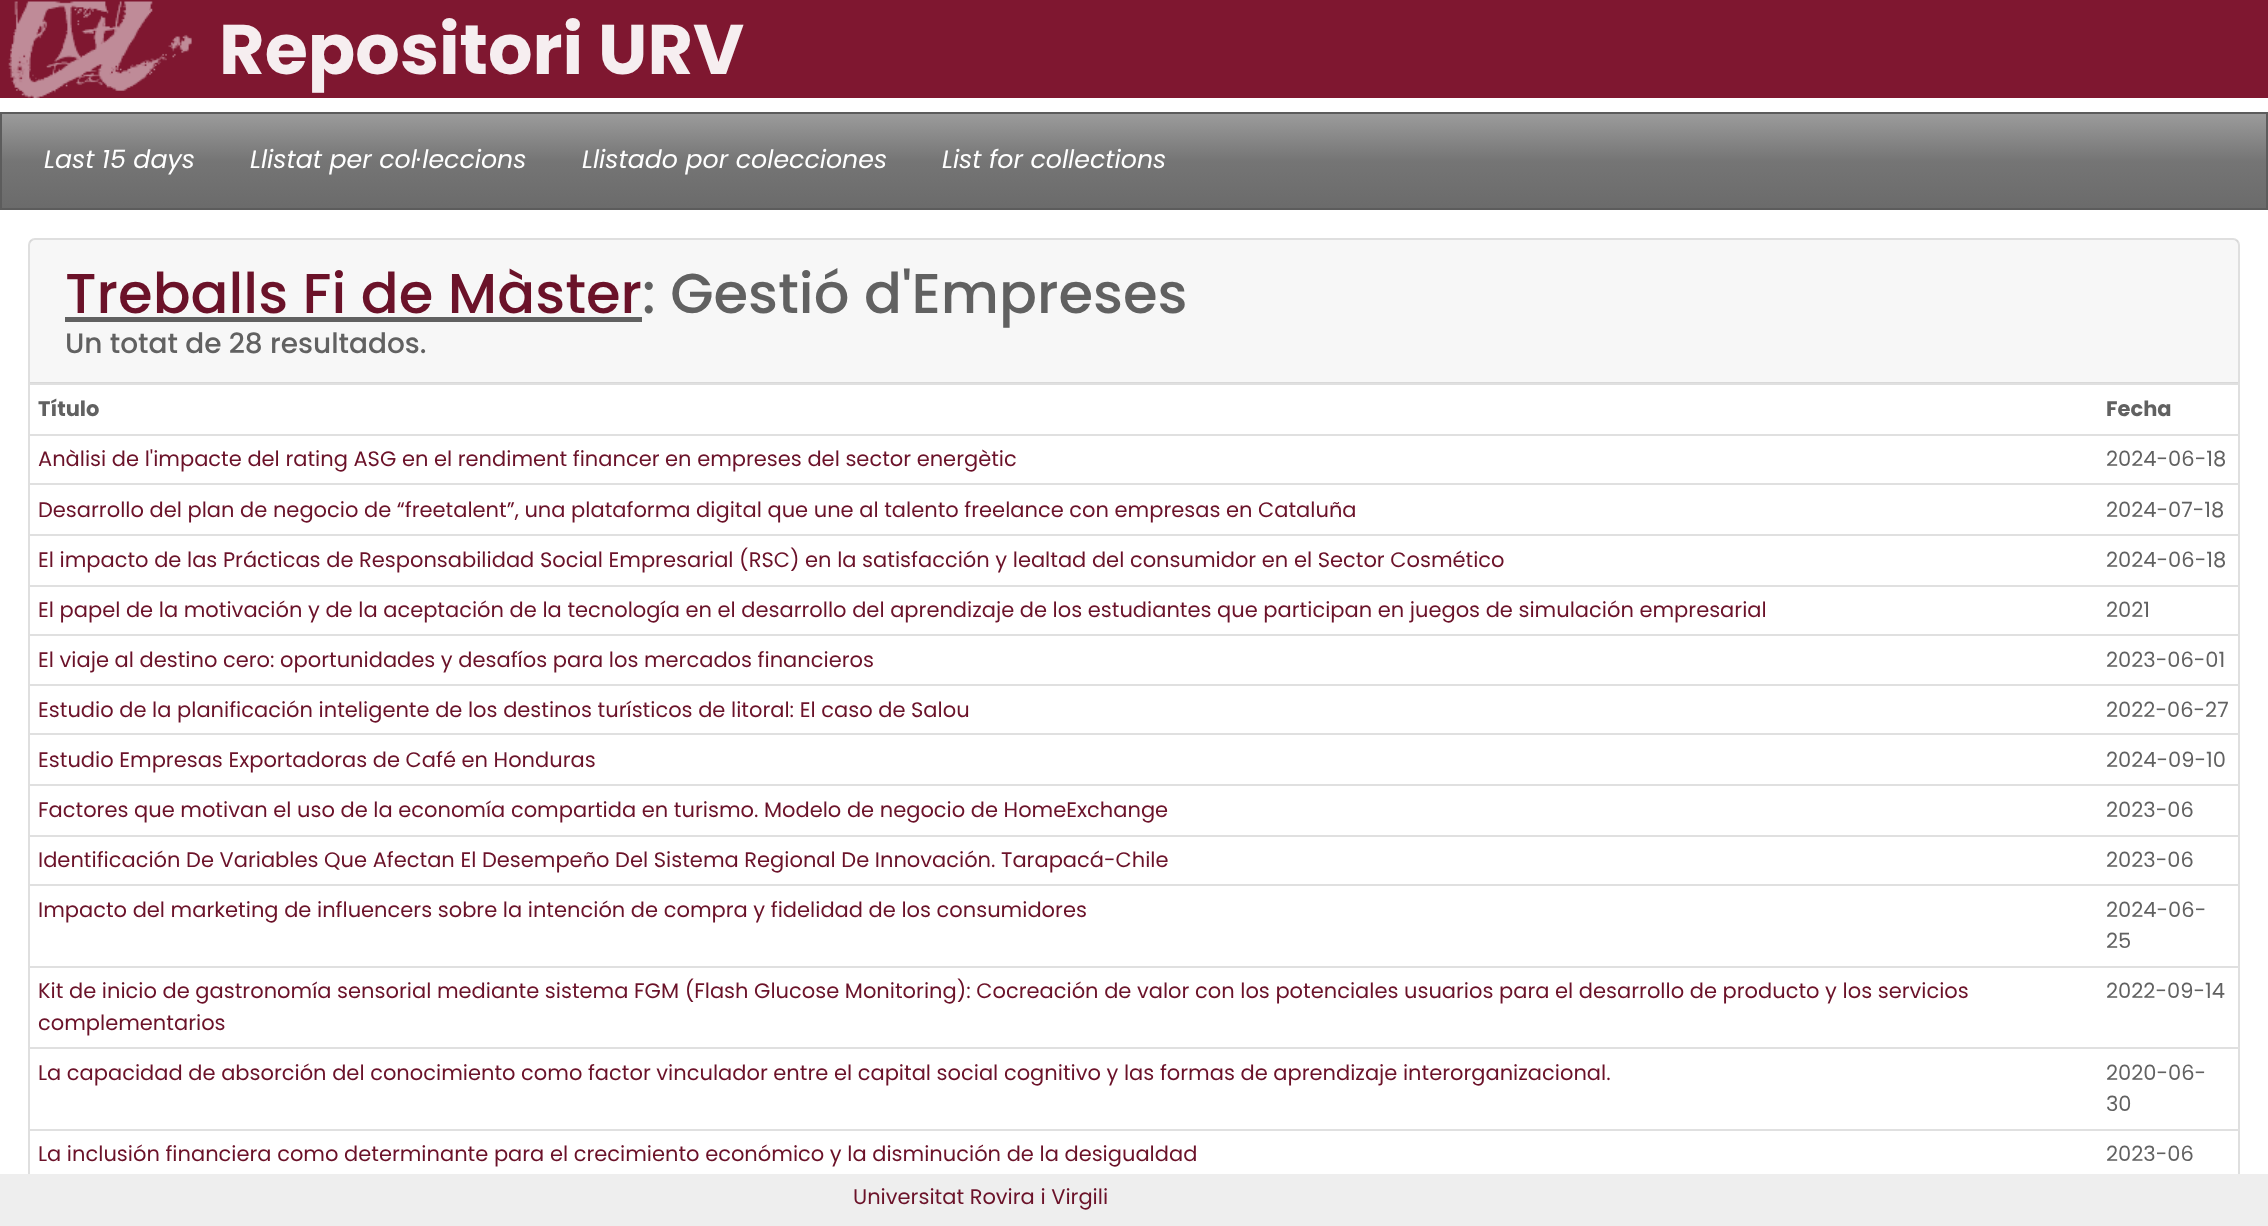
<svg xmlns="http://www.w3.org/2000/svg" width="2268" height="1226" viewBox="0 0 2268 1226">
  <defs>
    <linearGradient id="g1" gradientUnits="userSpaceOnUse" x1="1134" y1="114" x2="1134" y2="208"><stop offset="0" stop-color="rgb(155,155,155)"/><stop offset="0.5" stop-color="rgb(117,117,117)"/><stop offset="1" stop-color="rgb(107,107,107)"/></linearGradient>
  </defs>
  <rect width="100%" height="100%" fill="rgb(255,255,255)"/>
  <rect x="0" y="0" width="2268" height="98" fill="rgb(127,23,48)"/>
  <image x="8" y="1" width="184" height="97" href="pic1.png"/>
  <text x="219" y="74" font-family="Poppins" font-size="70" font-weight="bold" fill="rgb(246,238,240)">Repositori URV</text>
  <rect x="2" y="114" width="2264" height="94" fill="url(#g1)"/>
  <rect x="1" y="113" width="2266" height="96" fill="none" stroke="rgb(92,92,92)" stroke-width="2"/>
  <g font-family="Poppins" font-size="25.25" font-style="italic" fill="rgb(255,255,255)">
    <text x="44" y="168">Last 15 days</text>
    <text x="250" y="168">Llistat per col·leccions</text>
    <text x="582" y="168">Llistado por colecciones</text>
    <text x="942" y="168">List for collections</text>
  </g>
  <rect x="29" y="239" width="2210" height="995" rx="6" fill="none" stroke="rgb(223,223,223)" stroke-width="2"/>
  <rect x="30" y="240" width="2208" height="143" fill="rgba(0,0,0,0.03)"/>
  <rect x="30" y="382" width="2208" height="1" fill="rgba(0,0,0,0.12)"/>
  <text x="65" y="313" font-family="Poppins" font-size="56" font-weight="500" fill="rgb(107,18,41)">Treballs Fi de Màster</text>
  <rect x="65" y="317" width="577" height="5" fill="rgb(97,97,97)"/>
  <text x="642" y="313" font-family="Poppins" font-size="56" font-weight="500" fill="rgb(97,97,97)">: Gestió d'Empreses</text>
  <text x="65" y="353" font-family="Poppins" font-size="28" font-weight="500" fill="rgb(97,97,97)">Un totat de 28 resultados.</text>
  <text x="38" y="416" font-family="Poppins" font-size="21" font-weight="bold" fill="rgb(97,97,97)">Título</text>
  <rect x="30" y="383" width="2210" height="2" fill="rgb(224,224,224)"/>
  <text x="2106" y="416" font-family="Poppins" font-size="21" font-weight="bold" fill="rgb(97,97,97)">Fecha</text>
  <text x="38" y="466" font-family="Poppins" font-size="21" fill="rgb(107,18,41)">Anàlisi de l'impacte del rating ASG en el rendiment financer en empreses del sector energètic</text>
  <rect x="30" y="434" width="2210" height="2" fill="rgb(224,224,224)"/>
  <text x="2106" y="466" font-family="Poppins" font-size="21" fill="rgb(97,97,97)">2024-06-18</text>
  <text x="38" y="517" font-family="Poppins" font-size="21" fill="rgb(107,18,41)">Desarrollo del plan de negocio de “freetalent”, una plataforma digital que une al talento freelance con empresas en Cataluña</text>
  <rect x="30" y="483" width="2210" height="2" fill="rgb(224,224,224)"/>
  <text x="2106" y="517" font-family="Poppins" font-size="21" fill="rgb(97,97,97)">2024-07-18</text>
  <text x="38" y="567" font-family="Poppins" font-size="21" fill="rgb(107,18,41)">El impacto de las Prácticas de Responsabilidad Social Empresarial (RSC) en la satisfacción y lealtad del consumidor en el Sector Cosmético</text>
  <rect x="30" y="534" width="2210" height="2" fill="rgb(224,224,224)"/>
  <text x="2106" y="567" font-family="Poppins" font-size="21" fill="rgb(97,97,97)">2024-06-18</text>
  <text x="38" y="617" font-family="Poppins" font-size="21" fill="rgb(107,18,41)">El papel de la motivación y de la aceptación de la tecnología en el desarrollo del aprendizaje de los estudiantes que participan en juegos de simulación empresarial</text>
  <rect x="30" y="585" width="2210" height="2" fill="rgb(224,224,224)"/>
  <text x="2106" y="617" font-family="Poppins" font-size="21" fill="rgb(97,97,97)">2021</text>
  <text x="38" y="667" font-family="Poppins" font-size="21" fill="rgb(107,18,41)">El viaje al destino cero: oportunidades y desafíos para los mercados financieros</text>
  <rect x="30" y="634" width="2210" height="2" fill="rgb(224,224,224)"/>
  <text x="2106" y="667" font-family="Poppins" font-size="21" fill="rgb(97,97,97)">2023-06-01</text>
  <text x="38" y="717" font-family="Poppins" font-size="21" fill="rgb(107,18,41)">Estudio de la planificación inteligente de los destinos turísticos de litoral: El caso de Salou</text>
  <rect x="30" y="684" width="2210" height="2" fill="rgb(224,224,224)"/>
  <text x="2106" y="717" font-family="Poppins" font-size="21" fill="rgb(97,97,97)">2022-06-27</text>
  <text x="38" y="767" font-family="Poppins" font-size="21" fill="rgb(107,18,41)">Estudio Empresas Exportadoras de Café en Honduras</text>
  <rect x="30" y="733" width="2210" height="2" fill="rgb(224,224,224)"/>
  <text x="2106" y="767" font-family="Poppins" font-size="21" fill="rgb(97,97,97)">2024-09-10</text>
  <text x="38" y="817" font-family="Poppins" font-size="21" fill="rgb(107,18,41)">Factores que motivan el uso de la economía compartida en turismo. Modelo de negocio de HomeExchange</text>
  <rect x="30" y="784" width="2210" height="2" fill="rgb(224,224,224)"/>
  <text x="2106" y="817" font-family="Poppins" font-size="21" fill="rgb(97,97,97)">2023-06</text>
  <text x="38" y="867" font-family="Poppins" font-size="21" fill="rgb(107,18,41)">Identificación De Variables Que Afectan El Desempeño Del Sistema Regional De Innovación. Tarapacá-Chile</text>
  <rect x="30" y="835" width="2210" height="2" fill="rgb(224,224,224)"/>
  <text x="2106" y="867" font-family="Poppins" font-size="21" fill="rgb(97,97,97)">2023-06</text>
  <text x="38" y="917" font-family="Poppins" font-size="21" fill="rgb(107,18,41)">Impacto del marketing de influencers sobre la intención de compra y fidelidad de los consumidores</text>
  <rect x="30" y="884" width="2210" height="2" fill="rgb(224,224,224)"/>
  <g font-family="Poppins" font-size="21" fill="rgb(97,97,97)">
    <text>
      <tspan x="2106" y="917">2024-06-</tspan>
      <tspan x="2106" y="948">25</tspan>
    </text>
  </g>
  <g font-family="Poppins" font-size="21" fill="rgb(107,18,41)">
    <text>
      <tspan x="38" y="998">Kit de inicio de gastronomía sensorial mediante sistema FGM (Flash Glucose Monitoring): Cocreación de valor con los potenciales usuarios para el desarrollo de producto y los servicios</tspan>
      <tspan x="38" y="1030">complementarios</tspan>
    </text>
  </g>
  <rect x="30" y="966" width="2210" height="2" fill="rgb(224,224,224)"/>
  <text x="2106" y="998" font-family="Poppins" font-size="21" fill="rgb(97,97,97)">2022-09-14</text>
  <text x="38" y="1080" font-family="Poppins" font-size="21" fill="rgb(107,18,41)">La capacidad de absorción del conocimiento como factor vinculador entre el capital social cognitivo y las formas de aprendizaje interorganizacional.</text>
  <rect x="30" y="1047" width="2210" height="2" fill="rgb(224,224,224)"/>
  <g font-family="Poppins" font-size="21" fill="rgb(97,97,97)">
    <text>
      <tspan x="2106" y="1080">2020-06-</tspan>
      <tspan x="2106" y="1111">30</tspan>
    </text>
  </g>
  <text x="38" y="1161" font-family="Poppins" font-size="21" fill="rgb(107,18,41)">La inclusión financiera como determinante para el crecimiento económico y la disminución de la desigualdad</text>
  <rect x="30" y="1129" width="2210" height="2" fill="rgb(224,224,224)"/>
  <text x="2106" y="1161" font-family="Poppins" font-size="21" fill="rgb(97,97,97)">2023-06</text>
  <rect x="0" y="1174" width="2268" height="52" fill="rgb(238,238,238)"/>
  <text x="853" y="1204" font-family="Poppins" font-size="21" fill="rgb(107,18,41)">Universitat Rovira i Virgili</text>
</svg>
